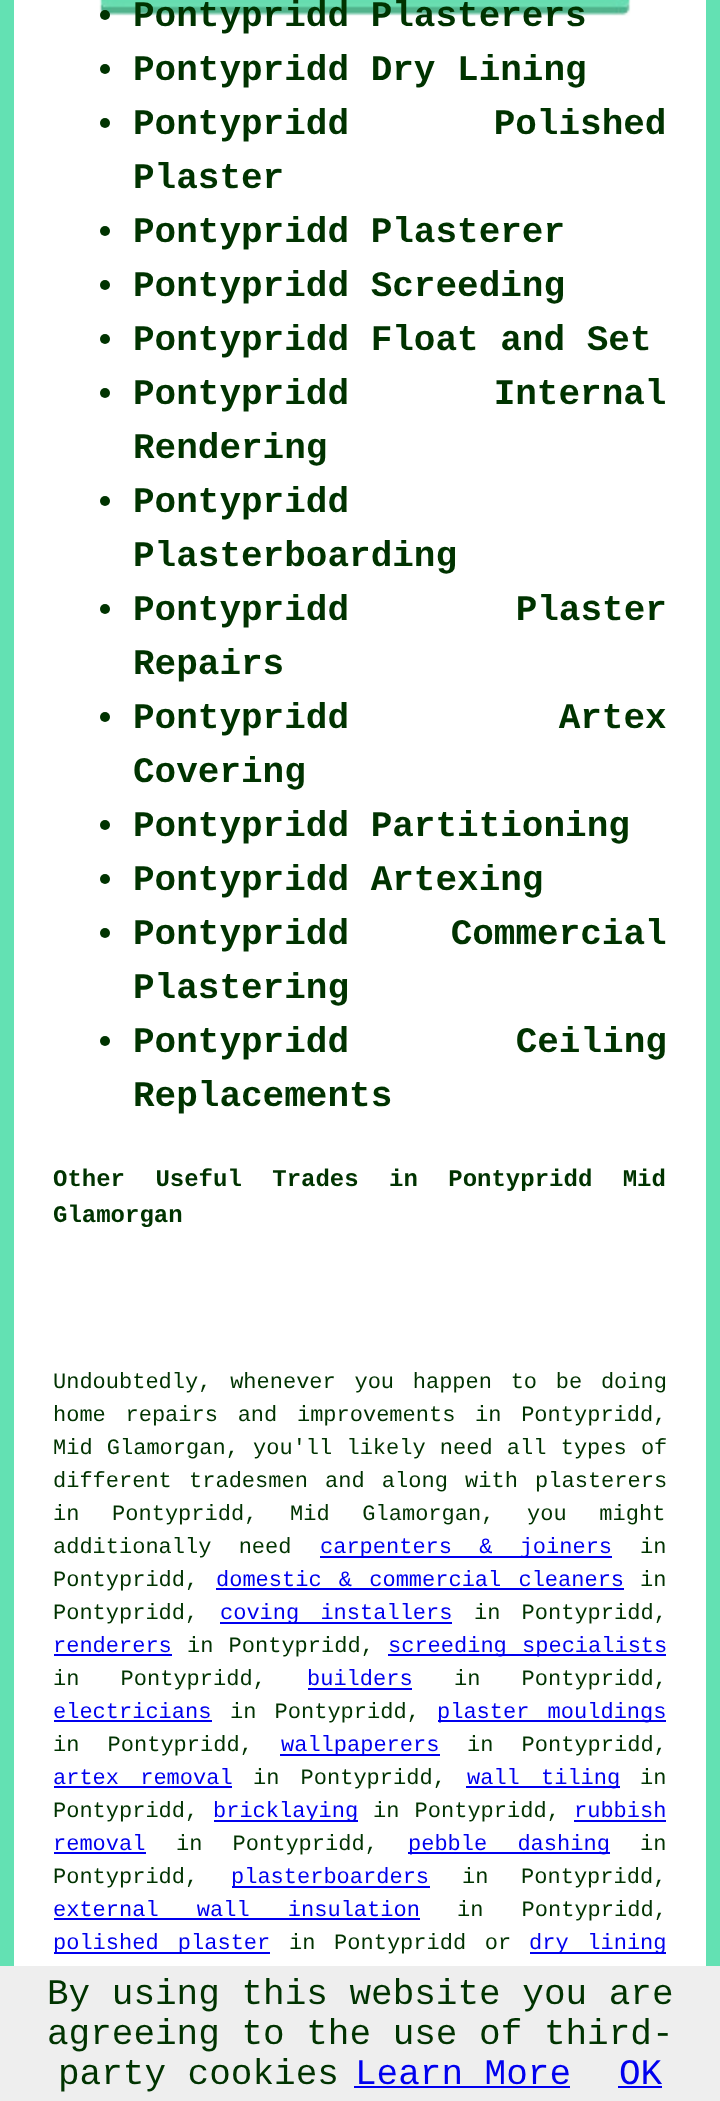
<svg xmlns="http://www.w3.org/2000/svg" width="720" height="2101" viewBox="0 0 720 2101">
  <rect width="100%" height="100%" fill="rgb(99,225,179)"/>
  <rect x="14" y="0" width="692" height="1966" fill="rgb(255,255,255)"/>
  <image x="99" y="0" width="532" height="16" href="pic1.png"/>
  <circle cx="105" cy="15" r="5" fill="rgb(0,51,0)"/>
  <text x="133" y="26" font-family="Liberation Mono" font-size="36" font-weight="bold" fill="rgb(0,51,0)">Pontypridd Plasterers</text>
  <circle cx="105" cy="69" r="5" fill="rgb(0,51,0)"/>
  <text x="133" y="80" font-family="Liberation Mono" font-size="36" font-weight="bold" fill="rgb(0,51,0)">Pontypridd Dry Lining</text>
  <circle cx="105" cy="123" r="5" fill="rgb(0,51,0)"/>
  <g font-family="Liberation Mono" font-size="36" font-weight="bold" fill="rgb(0,51,0)">
    <text>
      <tspan x="133" y="134" word-spacing="123">Pontypridd Polished</tspan>
      <tspan x="133" y="188">Plaster</tspan>
    </text>
  </g>
  <circle cx="105" cy="231" r="5" fill="rgb(0,51,0)"/>
  <text x="133" y="242" font-family="Liberation Mono" font-size="36" font-weight="bold" fill="rgb(0,51,0)">Pontypridd Plasterer</text>
  <circle cx="105" cy="285" r="5" fill="rgb(0,51,0)"/>
  <text x="133" y="296" font-family="Liberation Mono" font-size="36" font-weight="bold" fill="rgb(0,51,0)">Pontypridd Screeding</text>
  <circle cx="105" cy="339" r="5" fill="rgb(0,51,0)"/>
  <text x="133" y="350" font-family="Liberation Mono" font-size="36" font-weight="bold" fill="rgb(0,51,0)">Pontypridd Float and Set</text>
  <circle cx="105" cy="393" r="5" fill="rgb(0,51,0)"/>
  <g font-family="Liberation Mono" font-size="36" font-weight="bold" fill="rgb(0,51,0)">
    <text>
      <tspan x="133" y="404" word-spacing="123">Pontypridd Internal</tspan>
      <tspan x="133" y="458">Rendering</tspan>
    </text>
  </g>
  <circle cx="105" cy="501" r="5" fill="rgb(0,51,0)"/>
  <g font-family="Liberation Mono" font-size="36" font-weight="bold" fill="rgb(0,51,0)">
    <text>
      <tspan x="133" y="512">Pontypridd</tspan>
      <tspan x="133" y="566">Plasterboarding</tspan>
    </text>
  </g>
  <circle cx="105" cy="609" r="5" fill="rgb(0,51,0)"/>
  <g font-family="Liberation Mono" font-size="36" font-weight="bold" fill="rgb(0,51,0)">
    <text>
      <tspan x="133" y="620" word-spacing="145">Pontypridd Plaster</tspan>
      <tspan x="133" y="674">Repairs</tspan>
    </text>
  </g>
  <circle cx="105" cy="717" r="5" fill="rgb(0,51,0)"/>
  <g font-family="Liberation Mono" font-size="36" font-weight="bold" fill="rgb(0,51,0)">
    <text>
      <tspan x="133" y="728" word-spacing="188">Pontypridd Artex</tspan>
      <tspan x="133" y="782">Covering</tspan>
    </text>
  </g>
  <circle cx="105" cy="825" r="5" fill="rgb(0,51,0)"/>
  <text x="133" y="836" font-family="Liberation Mono" font-size="36" font-weight="bold" fill="rgb(0,51,0)">Pontypridd Partitioning</text>
  <circle cx="105" cy="879" r="5" fill="rgb(0,51,0)"/>
  <text x="133" y="890" font-family="Liberation Mono" font-size="36" font-weight="bold" fill="rgb(0,51,0)">Pontypridd Artexing</text>
  <circle cx="105" cy="933" r="5" fill="rgb(0,51,0)"/>
  <g font-family="Liberation Mono" font-size="36" font-weight="bold" fill="rgb(0,51,0)">
    <text>
      <tspan x="133" y="944" word-spacing="80">Pontypridd Commercial</tspan>
      <tspan x="133" y="998">Plastering</tspan>
    </text>
  </g>
  <circle cx="105" cy="1041" r="5" fill="rgb(0,51,0)"/>
  <g font-family="Liberation Mono" font-size="36" font-weight="bold" fill="rgb(0,51,0)">
    <text>
      <tspan x="133" y="1052" word-spacing="145">Pontypridd Ceiling</tspan>
      <tspan x="133" y="1106">Replacements</tspan>
    </text>
  </g>
  <g font-family="Liberation Mono" font-size="24" font-weight="bold" fill="rgb(0,51,0)">
    <text>
      <tspan x="53" y="1186" word-spacing="16">Other Useful Trades in Pontypridd Mid</tspan>
      <tspan x="53" y="1222">Glamorgan</tspan>
    </text>
  </g>
  <g font-family="Liberation Mono" font-size="22" fill="rgb(0,51,0)">
    <text>
      <tspan x="53" y="1388" word-spacing="5.5">Undoubtedly, whenever you happen to be doing</tspan>
      <tspan x="53" y="1421" word-spacing="6.5">home repairs and improvements in Pontypridd,</tspan>
      <tspan x="53" y="1454" word-spacing="1">Mid Glamorgan, you'll likely need all types of</tspan>
      <tspan x="53" y="1487" word-spacing="4">different tradesmen and along with plasterers</tspan>
      <tspan x="53" y="1520" word-spacing="19.5">in Pontypridd, Mid Glamorgan, you might</tspan>
      <tspan x="53" y="1553" word-spacing="14">additionally need</tspan>
    </text>
  </g>
  <rect x="320" y="1556" width="292" height="2" fill="rgb(0,0,238)"/>
  <text x="320" y="1553" word-spacing="14" font-family="Liberation Mono" font-size="22" fill="rgb(0,0,238)">carpenters &amp; joiners</text>
  <g font-family="Liberation Mono" font-size="22" fill="rgb(0,51,0)">
    <text x="640" y="1553">in</text>
    <text x="53" y="1586">Pontypridd,</text>
  </g>
  <text x="216" y="1586" word-spacing="4" font-family="Liberation Mono" font-size="22" fill="rgb(0,0,238)">domestic &amp; commercial cleaners</text>
  <rect x="216" y="1588" width="408" height="2" fill="rgb(0,0,238)"/>
  <g font-family="Liberation Mono" font-size="22" fill="rgb(0,51,0)">
    <text x="640" y="1586">in</text>
    <text x="53" y="1619">Pontypridd,</text>
  </g>
  <rect x="220" y="1622" width="232" height="2" fill="rgb(0,0,238)"/>
  <text x="220" y="1619" word-spacing="8" font-family="Liberation Mono" font-size="22" fill="rgb(0,0,238)">coving installers</text>
  <text x="474" y="1619" word-spacing="8" font-family="Liberation Mono" font-size="22" fill="rgb(0,51,0)">in Pontypridd,</text>
  <text x="53" y="1652" font-family="Liberation Mono" font-size="22" fill="rgb(0,0,238)">renderers</text>
  <rect x="54" y="1654" width="118" height="2" fill="rgb(0,0,238)"/>
  <text x="187" y="1652" word-spacing="2" font-family="Liberation Mono" font-size="22" fill="rgb(0,51,0)">in Pontypridd,</text>
  <rect x="388" y="1654" width="278" height="2" fill="rgb(0,0,238)"/>
  <text x="388" y="1652" word-spacing="2" font-family="Liberation Mono" font-size="22" fill="rgb(0,0,238)">screeding specialists</text>
  <text x="53" y="1685" word-spacing="28" font-family="Liberation Mono" font-size="22" fill="rgb(0,51,0)">in Pontypridd,</text>
  <text x="307" y="1685" font-family="Liberation Mono" font-size="22" fill="rgb(0,0,238)">builders</text>
  <rect x="308" y="1688" width="104" height="2" fill="rgb(0,0,238)"/>
  <text x="454" y="1685" word-spacing="28" font-family="Liberation Mono" font-size="22" fill="rgb(0,51,0)">in Pontypridd,</text>
  <text x="53" y="1718" font-family="Liberation Mono" font-size="22" fill="rgb(0,0,238)">electricians</text>
  <rect x="54" y="1720" width="158" height="2" fill="rgb(0,0,238)"/>
  <text x="230" y="1718" word-spacing="5" font-family="Liberation Mono" font-size="22" fill="rgb(0,51,0)">in Pontypridd,</text>
  <rect x="438" y="1720" width="228" height="2" fill="rgb(0,0,238)"/>
  <text x="437" y="1718" word-spacing="5" font-family="Liberation Mono" font-size="22" fill="rgb(0,0,238)">plaster mouldings</text>
  <text x="53" y="1751" word-spacing="15" font-family="Liberation Mono" font-size="22" fill="rgb(0,51,0)">in Pontypridd,</text>
  <rect x="280" y="1754" width="160" height="2" fill="rgb(0,0,238)"/>
  <text x="281" y="1751" font-family="Liberation Mono" font-size="22" fill="rgb(0,0,238)">wallpaperers</text>
  <text x="467" y="1751" word-spacing="15" font-family="Liberation Mono" font-size="22" fill="rgb(0,51,0)">in Pontypridd,</text>
  <text x="53" y="1784" word-spacing="8" font-family="Liberation Mono" font-size="22" fill="rgb(0,0,238)">artex removal</text>
  <rect x="54" y="1786" width="178" height="2" fill="rgb(0,0,238)"/>
  <text x="253" y="1784" word-spacing="8" font-family="Liberation Mono" font-size="22" fill="rgb(0,51,0)">in Pontypridd,</text>
  <rect x="466" y="1786" width="154" height="2" fill="rgb(0,0,238)"/>
  <text x="467" y="1784" word-spacing="8" font-family="Liberation Mono" font-size="22" fill="rgb(0,0,238)">wall tiling</text>
  <g font-family="Liberation Mono" font-size="22" fill="rgb(0,51,0)">
    <text x="640" y="1784">in</text>
    <text x="53" y="1817">Pontypridd,</text>
  </g>
  <rect x="214" y="1820" width="144" height="2" fill="rgb(0,0,238)"/>
  <text x="213" y="1817" font-family="Liberation Mono" font-size="22" fill="rgb(0,0,238)">bricklaying</text>
  <text x="373" y="1817" word-spacing="2" font-family="Liberation Mono" font-size="22" fill="rgb(0,51,0)">in Pontypridd,</text>
  <text x="574" y="1817" font-family="Liberation Mono" font-size="22" fill="rgb(0,0,238)">rubbish</text>
  <rect x="574" y="1820" width="92" height="2" fill="rgb(0,0,238)"/>
  <text x="53" y="1850" font-family="Liberation Mono" font-size="22" fill="rgb(0,0,238)">removal</text>
  <rect x="54" y="1852" width="92" height="2" fill="rgb(0,0,238)"/>
  <text x="176" y="1850" word-spacing="17" font-family="Liberation Mono" font-size="22" fill="rgb(0,51,0)">in Pontypridd,</text>
  <rect x="408" y="1852" width="202" height="2" fill="rgb(0,0,238)"/>
  <text x="408" y="1850" word-spacing="17" font-family="Liberation Mono" font-size="22" fill="rgb(0,0,238)">pebble dashing</text>
  <g font-family="Liberation Mono" font-size="22" fill="rgb(0,51,0)">
    <text x="640" y="1850">in</text>
    <text x="53" y="1883">Pontypridd,</text>
  </g>
  <rect x="232" y="1886" width="198" height="2" fill="rgb(0,0,238)"/>
  <text x="231" y="1883" font-family="Liberation Mono" font-size="22" fill="rgb(0,0,238)">plasterboarders</text>
  <text x="462" y="1883" word-spacing="19.5" font-family="Liberation Mono" font-size="22" fill="rgb(0,51,0)">in Pontypridd,</text>
  <text x="53" y="1916" word-spacing="25" font-family="Liberation Mono" font-size="22" fill="rgb(0,0,238)">external wall insulation</text>
  <rect x="54" y="1918" width="366" height="2" fill="rgb(0,0,238)"/>
  <text x="457" y="1916" word-spacing="25" font-family="Liberation Mono" font-size="22" fill="rgb(0,51,0)">in Pontypridd,</text>
  <rect x="54" y="1952" width="216" height="2" fill="rgb(0,0,238)"/>
  <text x="53" y="1949" word-spacing="6" font-family="Liberation Mono" font-size="22" fill="rgb(0,0,238)">polished plaster</text>
  <text x="289" y="1949" word-spacing="5.5" font-family="Liberation Mono" font-size="22" fill="rgb(0,51,0)">in Pontypridd or</text>
  <rect x="530" y="1952" width="136" height="2" fill="rgb(0,0,238)"/>
  <text x="529" y="1949" word-spacing="5.5" font-family="Liberation Mono" font-size="22" fill="rgb(0,0,238)">dry lining</text>
  <rect x="0" y="1966" width="720" height="135" fill="rgb(238,238,238)"/>
  <g font-family="Liberation Mono" font-size="36" fill="rgb(0,51,0)">
    <text>
      <tspan x="47" y="2004">By using this website you are</tspan>
      <tspan x="47" y="2044">agreeing to the use of third-</tspan>
    </text>
    <text x="58" y="2084">party cookies</text>
  </g>
  <text x="355" y="2084" font-family="Liberation Mono" font-size="36" fill="rgb(0,0,238)">Learn More</text>
  <rect x="354" y="2086" width="216" height="2" fill="rgb(0,0,238)"/>
  <text x="619" y="2084" font-family="Liberation Mono" font-size="36" fill="rgb(0,0,238)">OK</text>
  <rect x="618" y="2086" width="44" height="2" fill="rgb(0,0,238)"/>
</svg>
